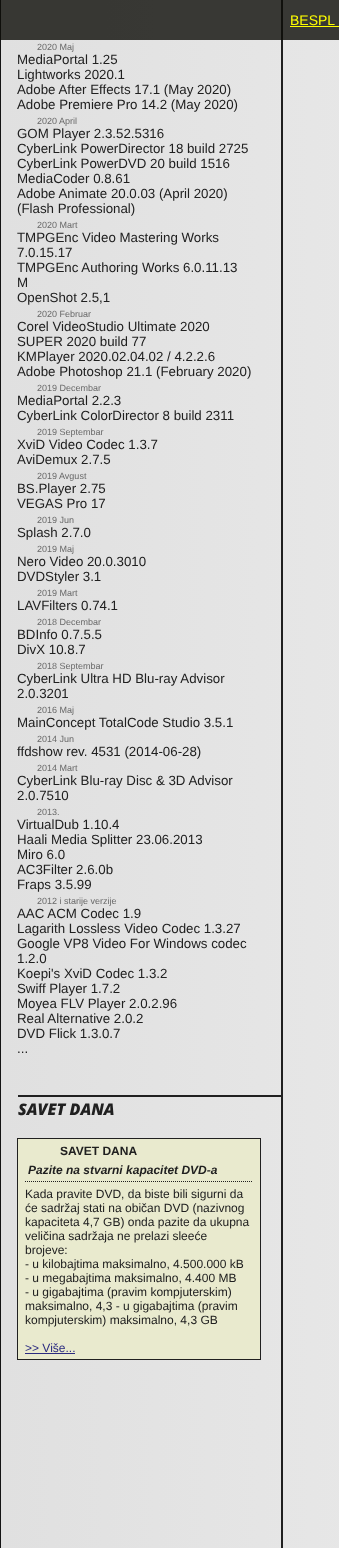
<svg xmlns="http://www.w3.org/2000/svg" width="339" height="1548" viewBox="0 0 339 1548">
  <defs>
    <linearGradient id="g1" gradientUnits="userSpaceOnUse" x1="1" y1="426" x2="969" y2="426"><stop offset="0" stop-color="rgb(224,224,224)"/><stop offset="0.75" stop-color="rgb(238,238,238)"/><stop offset="1" stop-color="rgb(224,224,224)"/></linearGradient>
  </defs>
  <rect width="100%" height="100%" fill="rgb(255,255,255)"/>
  <rect x="1" y="0" width="338" height="1548" fill="url(#g1)"/>
  <rect x="0.5" y="-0.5" width="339" height="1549" fill="none" stroke="rgb(20,20,20)"/>
  <rect x="281" y="0" width="2" height="1548" fill="rgb(32,32,32)"/>
  <rect x="0" y="0" width="339" height="40" fill="rgba(12,12,7,0.8)"/>
  <text x="290" y="25" font-family="Liberation Sans" font-size="14" fill="rgb(255,255,0)">BESPL</text>
  <rect x="290" y="26" width="49" height="1" fill="rgb(255,255,0)"/>
  <text x="37" y="50" font-family="Liberation Sans" font-size="9" fill="rgb(105,105,105)">2020 Maj</text>
  <g font-family="Liberation Sans" font-size="13.3" fill="rgb(32,32,32)">
    <text>
      <tspan x="17" y="64">MediaPortal 1.25</tspan>
      <tspan x="17" y="79">Lightworks 2020.1</tspan>
      <tspan x="17" y="94">Adobe After Effects 17.1 (May 2020)</tspan>
      <tspan x="17" y="109">Adobe Premiere Pro 14.2 (May 2020)</tspan>
    </text>
  </g>
  <text x="37" y="124" font-family="Liberation Sans" font-size="9" fill="rgb(105,105,105)">2020 April</text>
  <g font-family="Liberation Sans" font-size="13.3" fill="rgb(32,32,32)">
    <text>
      <tspan x="17" y="138">GOM Player 2.3.52.5316</tspan>
      <tspan x="17" y="153">CyberLink PowerDirector 18 build 2725</tspan>
      <tspan x="17" y="168">CyberLink PowerDVD 20 build 1516</tspan>
      <tspan x="17" y="183">MediaCoder 0.8.61</tspan>
      <tspan x="17" y="198">Adobe Animate 20.0.03 (April 2020)</tspan>
      <tspan x="17" y="213">(Flash Professional)</tspan>
    </text>
  </g>
  <text x="37" y="228" font-family="Liberation Sans" font-size="9" fill="rgb(105,105,105)">2020 Mart</text>
  <g font-family="Liberation Sans" font-size="13.3" fill="rgb(32,32,32)">
    <text>
      <tspan x="17" y="242">TMPGEnc Video Mastering Works</tspan>
      <tspan x="17" y="257">7.0.15.17</tspan>
      <tspan x="17" y="272">TMPGEnc Authoring Works 6.0.11.13</tspan>
      <tspan x="17" y="287">M</tspan>
      <tspan x="17" y="302">OpenShot 2.5,1</tspan>
    </text>
  </g>
  <text x="37" y="317" font-family="Liberation Sans" font-size="9" fill="rgb(105,105,105)">2020 Februar</text>
  <g font-family="Liberation Sans" font-size="13.3" fill="rgb(32,32,32)">
    <text>
      <tspan x="17" y="331">Corel VideoStudio Ultimate 2020</tspan>
      <tspan x="17" y="346">SUPER 2020 build 77</tspan>
      <tspan x="17" y="361">KMPlayer 2020.02.04.02 / 4.2.2.6</tspan>
      <tspan x="17" y="376">Adobe Photoshop 21.1 (February 2020)</tspan>
    </text>
  </g>
  <text x="37" y="391" font-family="Liberation Sans" font-size="9" fill="rgb(105,105,105)">2019 Decembar</text>
  <g font-family="Liberation Sans" font-size="13.3" fill="rgb(32,32,32)">
    <text>
      <tspan x="17" y="405">MediaPortal 2.2.3</tspan>
      <tspan x="17" y="420">CyberLink ColorDirector 8 build 2311</tspan>
    </text>
  </g>
  <text x="37" y="435" font-family="Liberation Sans" font-size="9" fill="rgb(105,105,105)">2019 Septembar</text>
  <g font-family="Liberation Sans" font-size="13.3" fill="rgb(32,32,32)">
    <text>
      <tspan x="17" y="449">XviD Video Codec 1.3.7</tspan>
      <tspan x="17" y="464">AviDemux 2.7.5</tspan>
    </text>
  </g>
  <text x="37" y="479" font-family="Liberation Sans" font-size="9" fill="rgb(105,105,105)">2019 Avgust</text>
  <g font-family="Liberation Sans" font-size="13.3" fill="rgb(32,32,32)">
    <text>
      <tspan x="17" y="493">BS.Player 2.75</tspan>
      <tspan x="17" y="508">VEGAS Pro 17</tspan>
    </text>
  </g>
  <text x="37" y="523" font-family="Liberation Sans" font-size="9" fill="rgb(105,105,105)">2019 Jun</text>
  <text x="17" y="537" font-family="Liberation Sans" font-size="13.3" fill="rgb(32,32,32)">Splash 2.7.0</text>
  <text x="37" y="552" font-family="Liberation Sans" font-size="9" fill="rgb(105,105,105)">2019 Maj</text>
  <g font-family="Liberation Sans" font-size="13.3" fill="rgb(32,32,32)">
    <text>
      <tspan x="17" y="566">Nero Video 20.0.3010</tspan>
      <tspan x="17" y="581">DVDStyler 3.1</tspan>
    </text>
  </g>
  <text x="37" y="596" font-family="Liberation Sans" font-size="9" fill="rgb(105,105,105)">2019 Mart</text>
  <text x="17" y="610" font-family="Liberation Sans" font-size="13.3" fill="rgb(32,32,32)">LAVFilters 0.74.1</text>
  <text x="37" y="625" font-family="Liberation Sans" font-size="9" fill="rgb(105,105,105)">2018 Decembar</text>
  <g font-family="Liberation Sans" font-size="13.3" fill="rgb(32,32,32)">
    <text>
      <tspan x="17" y="639">BDInfo 0.7.5.5</tspan>
      <tspan x="17" y="654">DivX 10.8.7</tspan>
    </text>
  </g>
  <text x="37" y="669" font-family="Liberation Sans" font-size="9" fill="rgb(105,105,105)">2018 Septembar</text>
  <g font-family="Liberation Sans" font-size="13.3" fill="rgb(32,32,32)">
    <text>
      <tspan x="17" y="683">CyberLink Ultra HD Blu-ray Advisor</tspan>
      <tspan x="17" y="698">2.0.3201</tspan>
    </text>
  </g>
  <text x="37" y="713" font-family="Liberation Sans" font-size="9" fill="rgb(105,105,105)">2016 Maj</text>
  <text x="17" y="727" font-family="Liberation Sans" font-size="13.3" fill="rgb(32,32,32)">MainConcept TotalCode Studio 3.5.1</text>
  <text x="37" y="742" font-family="Liberation Sans" font-size="9" fill="rgb(105,105,105)">2014 Jun</text>
  <text x="17" y="756" font-family="Liberation Sans" font-size="13.3" fill="rgb(32,32,32)">ffdshow rev. 4531 (2014-06-28)</text>
  <text x="37" y="771" font-family="Liberation Sans" font-size="9" fill="rgb(105,105,105)">2014 Mart</text>
  <g font-family="Liberation Sans" font-size="13.3" fill="rgb(32,32,32)">
    <text>
      <tspan x="17" y="785">CyberLink Blu-ray Disc &amp; 3D Advisor</tspan>
      <tspan x="17" y="800">2.0.7510</tspan>
    </text>
  </g>
  <text x="37" y="815" font-family="Liberation Sans" font-size="9" fill="rgb(105,105,105)">2013.</text>
  <g font-family="Liberation Sans" font-size="13.3" fill="rgb(32,32,32)">
    <text>
      <tspan x="17" y="829">VirtualDub 1.10.4</tspan>
      <tspan x="17" y="844">Haali Media Splitter 23.06.2013</tspan>
      <tspan x="17" y="859">Miro 6.0</tspan>
      <tspan x="17" y="874">AC3Filter 2.6.0b</tspan>
      <tspan x="17" y="889">Fraps 3.5.99</tspan>
    </text>
  </g>
  <text x="37" y="904" font-family="Liberation Sans" font-size="9" fill="rgb(105,105,105)">2012 i starije verzije</text>
  <g font-family="Liberation Sans" font-size="13.3" fill="rgb(32,32,32)">
    <text>
      <tspan x="17" y="918">AAC ACM Codec 1.9</tspan>
      <tspan x="17" y="933">Lagarith Lossless Video Codec 1.3.27</tspan>
      <tspan x="17" y="948">Google VP8 Video For Windows codec</tspan>
      <tspan x="17" y="963">1.2.0</tspan>
      <tspan x="17" y="978">Koepi's XviD Codec 1.3.2</tspan>
      <tspan x="17" y="993">Swiff Player 1.7.2</tspan>
      <tspan x="17" y="1008">Moyea FLV Player 2.0.2.96</tspan>
      <tspan x="17" y="1023">Real Alternative 2.0.2</tspan>
      <tspan x="17" y="1038">DVD Flick 1.3.0.7</tspan>
      <tspan x="17" y="1053">...</tspan>
    </text>
  </g>
  <rect x="18" y="1095" width="263" height="2" fill="rgb(32,32,32)"/>
  <text x="18" y="1115" font-family="Open Sans" font-size="16" font-weight="800" font-style="italic" fill="rgb(32,32,32)">SAVET DANA</text>
  <rect x="17.5" y="1138.5" width="243" height="221" fill="rgb(233,234,206)" stroke="rgb(32,32,32)"/>
  <text x="60" y="1155" font-family="Liberation Sans" font-size="12" font-weight="bold" fill="rgb(32,32,32)">SAVET DANA</text>
  <path d="M25 1181.5H253" fill="none" stroke="rgb(32,32,32)" stroke-dasharray="1 1"/>
  <text x="28" y="1174" font-family="Liberation Sans" font-size="12" font-weight="bold" font-style="italic" fill="rgb(32,32,32)">Pazite na stvarni kapacitet DVD-a</text>
  <g font-family="Liberation Sans" font-size="12" fill="rgb(32,32,32)">
    <text>
      <tspan x="25" y="1198">Kada pravite DVD, da biste bili sigurni da</tspan>
      <tspan x="25" y="1212">će sadržaj stati na običan DVD (nazivnog</tspan>
      <tspan x="25" y="1226">kapaciteta 4,7 GB) onda pazite da ukupna</tspan>
      <tspan x="25" y="1240">veličina sadržaja ne prelazi sleeće</tspan>
      <tspan x="25" y="1254">brojeve:</tspan>
      <tspan x="25" y="1268">- u kilobajtima maksimalno, 4.500.000 kB</tspan>
      <tspan x="25" y="1282">- u megabajtima maksimalno, 4.400 MB</tspan>
      <tspan x="25" y="1296">- u gigabajtima (pravim kompjuterskim)</tspan>
      <tspan x="25" y="1310">maksimalno, 4,3 - u gigabajtima (pravim</tspan>
      <tspan x="25" y="1324">kompjuterskim) maksimalno, 4,3 GB</tspan>
    </text>
  </g>
  <text x="25" y="1352" font-family="Liberation Sans" font-size="12" fill="rgb(43,43,128)">&gt;&gt; Više...</text>
  <rect x="25" y="1353" width="50" height="1" fill="rgb(43,43,128)"/>
</svg>
